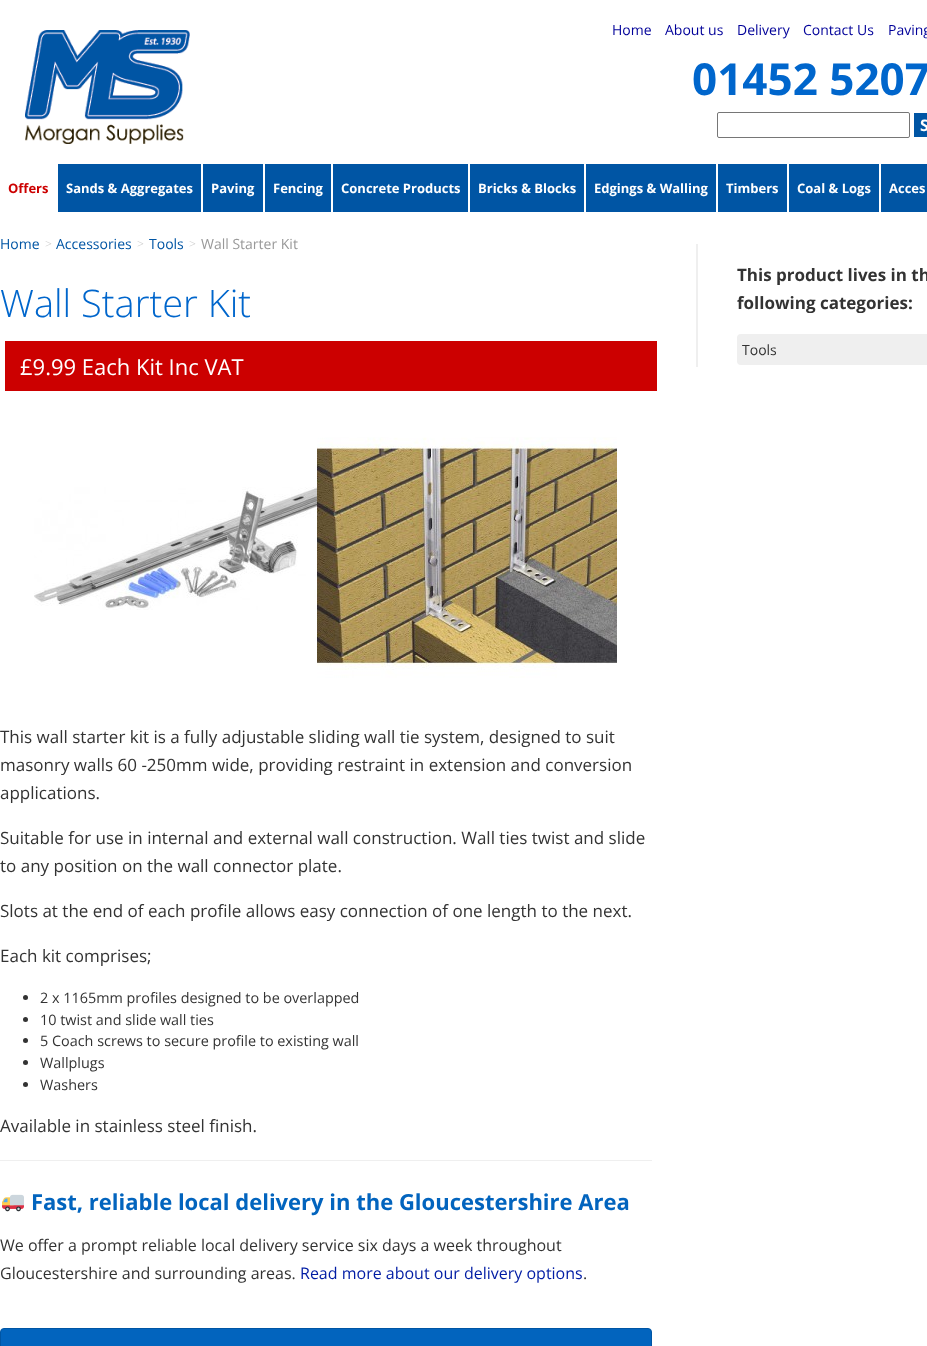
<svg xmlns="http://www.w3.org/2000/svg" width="927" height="1346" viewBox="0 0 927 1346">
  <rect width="100%" height="100%" fill="rgb(255,255,255)"/>
  <image x="25" y="30" width="165" height="114" href="pic1.png"/>
  <g font-family="Open Sans" font-size="14" fill="rgb(0,0,153)">
    <text x="612" y="35">Home</text>
    <text x="665" y="35">About us</text>
    <text x="737" y="35">Delivery</text>
    <text x="803" y="35">Contact Us</text>
    <text x="888" y="35">Paving</text>
  </g>
  <text x="692" y="95" font-family="Open Sans" font-size="44" font-weight="bold" fill="rgb(0,102,204)">01452 5207</text>
  <rect x="717.5" y="112.5" width="192" height="25" rx="1.5" fill="none" stroke="rgb(118,118,118)"/>
  <rect x="914" y="113" width="13" height="24" fill="rgb(0,85,164)"/>
  <text x="920" y="131" font-family="Open Sans" font-size="16" font-weight="bold" fill="rgb(255,255,255)">S</text>
  <rect x="58" y="164" width="869" height="48" fill="rgb(0,85,164)"/>
  <text x="8" y="193" font-family="Open Sans" font-size="13" font-weight="bold" fill="rgb(204,0,0)">Offers</text>
  <text x="66" y="193" font-family="Open Sans" font-size="13" font-weight="bold" fill="rgb(255,255,255)">Sands &amp; Aggregates</text>
  <rect x="201" y="164" width="2" height="48" fill="rgb(255,255,255)"/>
  <text x="211" y="193" font-family="Open Sans" font-size="13" font-weight="bold" fill="rgb(255,255,255)">Paving</text>
  <rect x="263" y="164" width="2" height="48" fill="rgb(255,255,255)"/>
  <text x="273" y="193" font-family="Open Sans" font-size="13" font-weight="bold" fill="rgb(255,255,255)">Fencing</text>
  <rect x="331" y="164" width="2" height="48" fill="rgb(255,255,255)"/>
  <text x="341" y="193" font-family="Open Sans" font-size="13" font-weight="bold" fill="rgb(255,255,255)">Concrete Products</text>
  <rect x="468" y="164" width="2" height="48" fill="rgb(255,255,255)"/>
  <text x="478" y="193" font-family="Open Sans" font-size="13" font-weight="bold" fill="rgb(255,255,255)">Bricks &amp; Blocks</text>
  <rect x="584" y="164" width="2" height="48" fill="rgb(255,255,255)"/>
  <text x="594" y="193" font-family="Open Sans" font-size="13" font-weight="bold" fill="rgb(255,255,255)">Edgings &amp; Walling</text>
  <rect x="716" y="164" width="2" height="48" fill="rgb(255,255,255)"/>
  <text x="726" y="193" font-family="Open Sans" font-size="13" font-weight="bold" fill="rgb(255,255,255)">Timbers</text>
  <rect x="787" y="164" width="2" height="48" fill="rgb(255,255,255)"/>
  <text x="797" y="193" font-family="Open Sans" font-size="13" font-weight="bold" fill="rgb(255,255,255)">Coal &amp; Logs</text>
  <rect x="879" y="164" width="2" height="48" fill="rgb(255,255,255)"/>
  <text x="889" y="193" font-family="Open Sans" font-size="13" font-weight="bold" fill="rgb(255,255,255)">Acces</text>
  <text x="0" y="249" font-family="Open Sans" font-size="14" fill="rgb(0,85,164)">Home</text>
  <text x="45" y="248" font-family="Open Sans" font-size="12" font-weight="300" fill="rgb(204,204,204)">&gt;</text>
  <text x="56" y="249" font-family="Open Sans" font-size="14" fill="rgb(0,85,164)">Accessories</text>
  <text x="137" y="248" font-family="Open Sans" font-size="12" font-weight="300" fill="rgb(204,204,204)">&gt;</text>
  <text x="149" y="249" font-family="Open Sans" font-size="14" fill="rgb(0,85,164)">Tools</text>
  <text x="189" y="248" font-family="Open Sans" font-size="12" font-weight="300" fill="rgb(204,204,204)">&gt;</text>
  <text x="201" y="249" font-family="Open Sans" font-size="14" fill="rgb(153,153,153)">Wall Starter Kit</text>
  <text x="0" y="317" font-family="Open Sans" font-size="38" font-weight="300" fill="rgb(0,102,204)">Wall Starter Kit</text>
  <rect x="5" y="341" width="652" height="50" fill="rgb(204,0,0)"/>
  <text x="20" y="375" font-family="Open Sans" font-size="22" fill="rgb(255,255,255)">£9.99 Each Kit Inc VAT</text>
  <image x="34" y="487" width="283" height="123" href="pic2.png"/>
  <image x="317" y="437" width="300" height="241" href="pic3.png"/>
  <g font-family="Open Sans" font-size="17" fill="rgb(51,51,51)">
    <text>
      <tspan x="0" y="743">This wall starter kit is a fully adjustable sliding wall tie system, designed to suit</tspan>
      <tspan x="0" y="771">masonry walls 60 -250mm wide, providing restraint in extension and conversion</tspan>
      <tspan x="0" y="799">applications.</tspan>
    </text>
    <text>
      <tspan x="0" y="844">Suitable for use in internal and external wall construction. Wall ties twist and slide</tspan>
      <tspan x="0" y="872">to any position on the wall connector plate.</tspan>
    </text>
    <text x="0" y="917">Slots at the end of each profile allows easy connection of one length to the next.</text>
    <text x="0" y="962">Each kit comprises;</text>
  </g>
  <circle cx="25.5" cy="997.5" r="2.5" fill="rgb(51,51,51)"/>
  <text x="40" y="1003" font-family="Open Sans" font-size="14.4" fill="rgb(51,51,51)">2 x 1165mm profiles designed to be overlapped</text>
  <circle cx="25.5" cy="1019.5" r="2.5" fill="rgb(51,51,51)"/>
  <text x="40" y="1025" font-family="Open Sans" font-size="14.4" fill="rgb(51,51,51)">10 twist and slide wall ties</text>
  <circle cx="25.5" cy="1040.5" r="2.5" fill="rgb(51,51,51)"/>
  <text x="40" y="1046" font-family="Open Sans" font-size="14.4" fill="rgb(51,51,51)">5 Coach screws to secure profile to existing wall</text>
  <circle cx="25.5" cy="1062.5" r="2.5" fill="rgb(51,51,51)"/>
  <text x="40" y="1068" font-family="Open Sans" font-size="14.4" fill="rgb(51,51,51)">Wallplugs</text>
  <circle cx="25.5" cy="1084.5" r="2.5" fill="rgb(51,51,51)"/>
  <text x="40" y="1090" font-family="Open Sans" font-size="14.4" fill="rgb(51,51,51)">Washers</text>
  <text x="0" y="1132" font-family="Open Sans" font-size="17" fill="rgb(51,51,51)">Available in stainless steel finish.</text>
  <rect x="0" y="1160" width="652" height="1" fill="rgb(239,239,239)"/>
  <image x="2" y="1194" width="22" height="18" href="pic4.png"/>
  <text x="31" y="1210" font-family="Open Sans" font-size="22" font-weight="bold" fill="rgb(2,100,190)">Fast, reliable local delivery in the Gloucestershire Area</text>
  <g font-family="Open Sans" font-size="16" fill="rgb(51,51,51)">
    <text>
      <tspan x="0" y="1251">We offer a prompt reliable local delivery service six days a week throughout</tspan>
      <tspan x="0" y="1279">Gloucestershire and surrounding areas.</tspan>
    </text>
  </g>
  <text x="300" y="1279" font-family="Open Sans" font-size="16" fill="rgb(0,28,164)">Read more about our delivery options</text>
  <text x="583" y="1279" font-family="Open Sans" font-size="16" fill="rgb(51,51,51)">.</text>
  <rect x="0.5" y="1328.5" width="651" height="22" rx="3.5" fill="rgb(2,100,190)" stroke="rgb(0,85,164)"/>
  <rect x="696" y="244" width="2" height="123" fill="rgb(239,239,239)"/>
  <g font-family="Open Sans" font-size="17" font-weight="bold" fill="rgb(51,51,51)">
    <text>
      <tspan x="737" y="281">This product lives in th</tspan>
      <tspan x="737" y="309">following categories:</tspan>
    </text>
  </g>
  <rect x="737" y="334" width="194" height="31" rx="4" fill="rgb(239,239,239)"/>
  <text x="742" y="355" font-family="Open Sans" font-size="14" fill="rgb(51,51,51)">Tools</text>
</svg>
